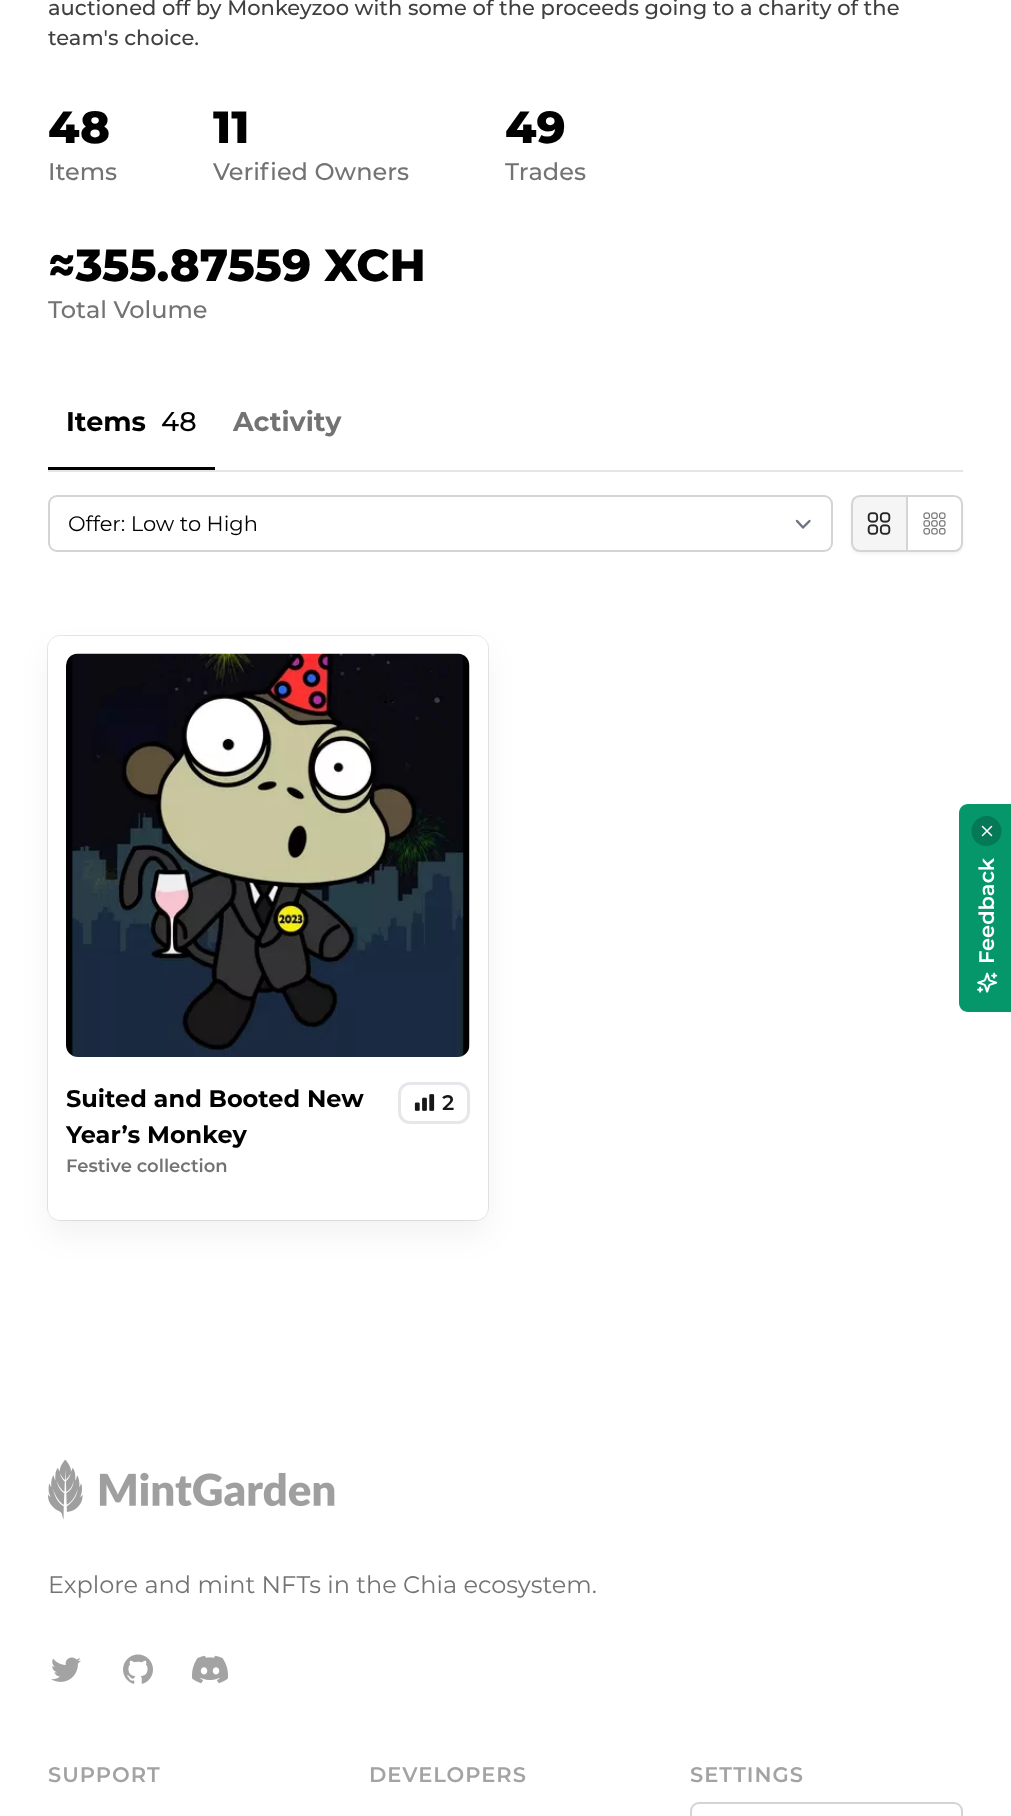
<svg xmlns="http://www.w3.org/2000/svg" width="1011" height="1816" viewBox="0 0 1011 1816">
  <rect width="100%" height="100%" fill="rgb(255,255,255)"/>
  <g font-family="Montserrat" font-size="21" font-weight="500" fill="rgb(64,64,64)">
    <text>
      <tspan x="48" y="15">auctioned off by Monkeyzoo with some of the proceeds going to a charity of the</tspan>
      <tspan x="48" y="45">team's choice.</tspan>
    </text>
  </g>
  <text x="48" y="143" font-family="Montserrat" font-size="45" font-weight="800" fill="rgb(0,0,0)">48</text>
  <text x="48" y="180" font-family="Montserrat" font-size="24" font-weight="500" fill="rgb(115,115,115)">Items</text>
  <text x="213" y="143" font-family="Montserrat" font-size="45" font-weight="800" fill="rgb(0,0,0)">11</text>
  <text x="213" y="180" font-family="Montserrat" font-size="24" font-weight="500" fill="rgb(115,115,115)">Verified Owners</text>
  <text x="505" y="143" font-family="Montserrat" font-size="45" font-weight="800" fill="rgb(0,0,0)">49</text>
  <text x="505" y="180" font-family="Montserrat" font-size="24" font-weight="500" fill="rgb(115,115,115)">Trades</text>
  <text x="48" y="281" font-family="Montserrat" font-size="45" font-weight="800" fill="rgb(0,0,0)">≈355.87559 XCH</text>
  <text x="48" y="318" font-family="Montserrat" font-size="24" font-weight="500" fill="rgb(115,115,115)">Total Volume</text>
  <rect x="48" y="470" width="915" height="2" fill="rgb(229,229,229)"/>
  <rect x="48" y="467" width="167" height="3" fill="rgb(0,0,0)"/>
  <text x="66" y="431" font-family="Montserrat" font-size="27" font-weight="bold" fill="rgb(0,0,0)">Items</text>
  <text x="161" y="431" font-family="Montserrat" font-size="27" font-weight="500" fill="rgb(0,0,0)">48</text>
  <text x="233" y="431" font-family="Montserrat" font-size="27" font-weight="bold" fill="rgb(115,115,115)">Activity</text>
  <path d="M797 521L803 527.5L809.5 521" fill="none" stroke="rgb(107,114,128)" stroke-width="2.4" stroke-linecap="round" stroke-linejoin="round"/>
  <rect x="49" y="496" width="783" height="55" rx="8" fill="none" stroke="rgb(212,212,212)" stroke-width="2"/>
  <text x="68" y="531" font-family="Montserrat" font-size="21" fill="rgb(0,0,0)">Offer: Low to High</text>
  <rect x="851" y="497" width="112" height="57" rx="9" fill="rgba(0,0,0,0.05)" filter="blur(1.5px)"/>
  <path d="M860 496H907V551H860C855.5 551 852 547.5 852 543V504C852 499.5 855.5 496 860 496Z" fill="rgb(245,245,245)" stroke="rgb(212,212,212)" stroke-width="2"/>
  <image x="867" y="512" width="24" height="23" href="pic1.png"/>
  <path d="M907 496H954C958.5 496 962 499.5 962 504V543C962 547.5 958.5 551 954 551H907Z" fill="rgb(255,255,255)" stroke="rgb(212,212,212)" stroke-width="2"/>
  <image x="923" y="512" width="23" height="23" href="pic2.png"/>
  <rect x="48" y="636" width="440" height="584" rx="13" fill="none" stroke="rgb(230,230,230)" stroke-width="2"/>
  <rect x="48" y="651" width="440" height="584" rx="12" fill="rgba(0,0,0,0.05)" filter="blur(15px)"/>
  <rect x="48" y="636" width="440" height="584" rx="12" fill="rgb(255,255,255)"/>
  <image x="66" y="653" width="404" height="404" href="pic3.png"/>
  <g font-family="Montserrat" font-size="24" font-weight="bold" fill="rgb(0,0,0)">
    <text>
      <tspan x="66" y="1107">Suited and Booted New</tspan>
      <tspan x="66" y="1143">Year’s Monkey</tspan>
    </text>
  </g>
  <text x="66" y="1172" font-family="Montserrat" font-size="18" font-weight="600" fill="rgb(115,115,115)">Festive collection</text>
  <rect x="399.5" y="1083.5" width="69" height="39" rx="10.5" fill="none" stroke="rgb(229,231,235)" stroke-width="3"/>
  <image x="414" y="1094" width="21" height="17" href="pic4.png"/>
  <text x="442" y="1110" font-family="Montserrat" font-size="21" font-weight="600" fill="rgb(23,23,23)">2</text>
  <path d="M959 1003V813C959 808 963 804 968 804H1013V1012H968C963 1012 959 1008 959 1003Z" fill="rgb(5,150,105)"/>
  <path d="M971.5 831C971.5 823 978 816 986.5 816C994.5 816 1001.5 823 1001.5 831C1001.5 839.5 994.5 846 986.5 846C978 846 971.5 839.5 971.5 831Z" fill="rgb(4,120,87)"/>
  <path d="M982.5 826.5L991.5 835.5M982.5 835.5L991.5 826.5" fill="none" stroke="rgb(255,255,255)" stroke-width="1.5" stroke-linecap="round" stroke-linejoin="round"/>
  <text x="994" y="964" transform="rotate(-90 994 964)" font-family="Montserrat" font-size="21" font-weight="600" fill="rgb(255,255,255)">Feedback</text>
  <image x="977" y="972" width="21" height="21" href="pic5.png"/>
  <image x="48" y="1460" width="287" height="60" href="pic6.png"/>
  <text x="48" y="1593" font-family="Montserrat" font-size="24" fill="rgb(115,115,115)">Explore and mint NFTs in the Chia ecosystem.</text>
  <image x="51" y="1657" width="30" height="25" href="pic7.png"/>
  <image x="123" y="1654" width="30" height="30" href="pic8.png"/>
  <image x="192" y="1655" width="36" height="29" href="pic9.png"/>
  <g font-family="Montserrat" font-size="21" font-weight="600" letter-spacing="1" fill="rgb(163,163,163)">
    <text x="48" y="1782">SUPPORT</text>
    <text x="369" y="1782">DEVELOPERS</text>
    <text x="690" y="1782">SETTINGS</text>
  </g>
  <rect x="691" y="1803" width="271" height="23" rx="8" fill="none" stroke="rgb(212,212,212)" stroke-width="2"/>
</svg>
